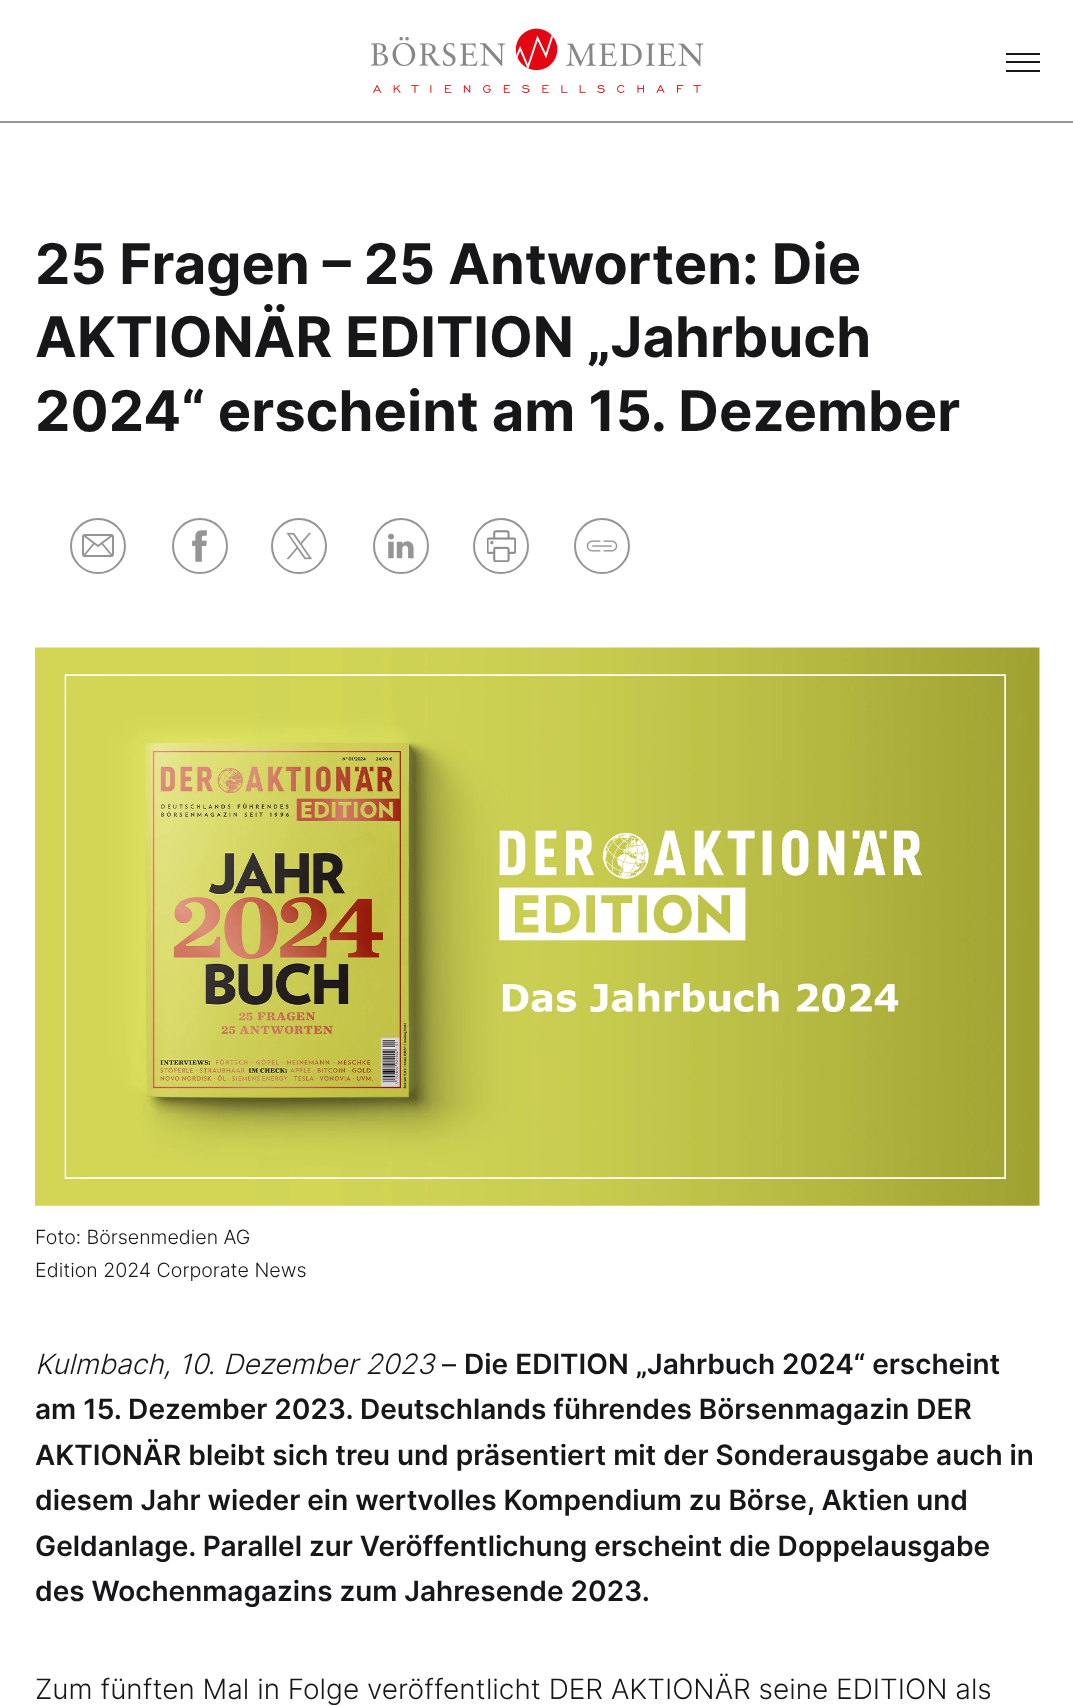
<svg xmlns="http://www.w3.org/2000/svg" width="1073" height="1706" viewBox="0 0 1073 1706">
  <rect width="100%" height="100%" fill="rgb(255,255,255)"/>
  <rect x="0" y="121" width="1073" height="2" fill="rgb(150,150,153)"/>
  <image x="371" y="28" width="333" height="65" href="pic1.png"/>
  <rect x="1006" y="53" width="34" height="2" fill="rgb(23,23,26)"/>
  <rect x="1006" y="61" width="34" height="2" fill="rgb(23,23,26)"/>
  <rect x="1006" y="70" width="34" height="2" fill="rgb(23,23,26)"/>
  <g font-family="Inter" font-size="56" font-weight="bold" fill="rgb(23,23,26)">
    <text>
      <tspan x="35" y="284">25 Fragen – 25 Antworten: Die</tspan>
      <tspan x="35" y="357">AKTIONÄR EDITION „Jahrbuch</tspan>
      <tspan x="35" y="431">2024“ erscheint am 15. Dezember</tspan>
    </text>
  </g>
  <rect x="83" y="535" width="30" height="21" rx="2" fill="none" stroke="rgb(149,149,149)" stroke-width="2"/>
  <path d="M94 543.5L84 555.5M102 543.5L112 555.5M84 535.5L98 546L112 535.5" fill="none" stroke="rgb(149,149,149)" stroke-width="1.9" stroke-linecap="round" stroke-linejoin="round"/>
  <circle cx="98" cy="546" r="27" fill="none" stroke="rgb(149,149,149)" stroke-width="2"/>
  <image x="192" y="530" width="15" height="32" href="pic2.png"/>
  <circle cx="200" cy="546" r="27" fill="none" stroke="rgb(149,149,149)" stroke-width="2"/>
  <image x="286" y="532" width="26" height="28" href="pic3.png"/>
  <circle cx="299" cy="546" r="27" fill="none" stroke="rgb(149,149,149)" stroke-width="2"/>
  <image x="387" y="533" width="27" height="26" href="pic4.png"/>
  <circle cx="401" cy="546" r="27" fill="none" stroke="rgb(149,149,149)" stroke-width="2"/>
  <image x="487" y="530" width="29" height="32" href="pic5.png"/>
  <circle cx="501" cy="546" r="27" fill="none" stroke="rgb(149,149,149)" stroke-width="2"/>
  <image x="586" y="540" width="32" height="12" href="pic6.png"/>
  <circle cx="602" cy="546" r="27" fill="none" stroke="rgb(149,149,149)" stroke-width="2"/>
  <image x="35" y="647" width="1005" height="559" href="pic7.png"/>
  <g font-family="Inter" font-size="19.6" font-weight="300" fill="rgb(23,23,26)">
    <text>
      <tspan x="35" y="1244">Foto: Börsenmedien AG</tspan>
      <tspan x="35" y="1277">Edition 2024 Corporate News</tspan>
    </text>
  </g>
  <text x="35" y="1374" font-family="Inter" font-size="28" font-weight="300" font-style="italic" fill="rgb(23,23,26)">Kulmbach, 10. Dezember 2023</text>
  <text x="442" y="1374" font-family="Inter" font-size="28" fill="rgb(23,23,26)">–</text>
  <g font-family="Inter" font-size="28" font-weight="600" fill="rgb(23,23,26)">
    <text x="464" y="1374">Die EDITION „Jahrbuch 2024“ erscheint</text>
    <text>
      <tspan x="35" y="1419">am 15. Dezember 2023. Deutschlands führendes Börsenmagazin DER</tspan>
      <tspan x="35" y="1465">AKTIONÄR bleibt sich treu und präsentiert mit der Sonderausgabe auch in</tspan>
      <tspan x="35" y="1510">diesem Jahr wieder ein wertvolles Kompendium zu Börse, Aktien und</tspan>
      <tspan x="35" y="1556">Geldanlage. Parallel zur Veröffentlichung erscheint die Doppelausgabe</tspan>
      <tspan x="35" y="1601">des Wochenmagazins zum Jahresende 2023.</tspan>
    </text>
  </g>
  <text x="35" y="1699" font-family="Inter" font-size="28" font-weight="300" fill="rgb(23,23,26)">Zum fünften Mal in Folge veröffentlicht DER AKTIONÄR seine EDITION als</text>
</svg>
